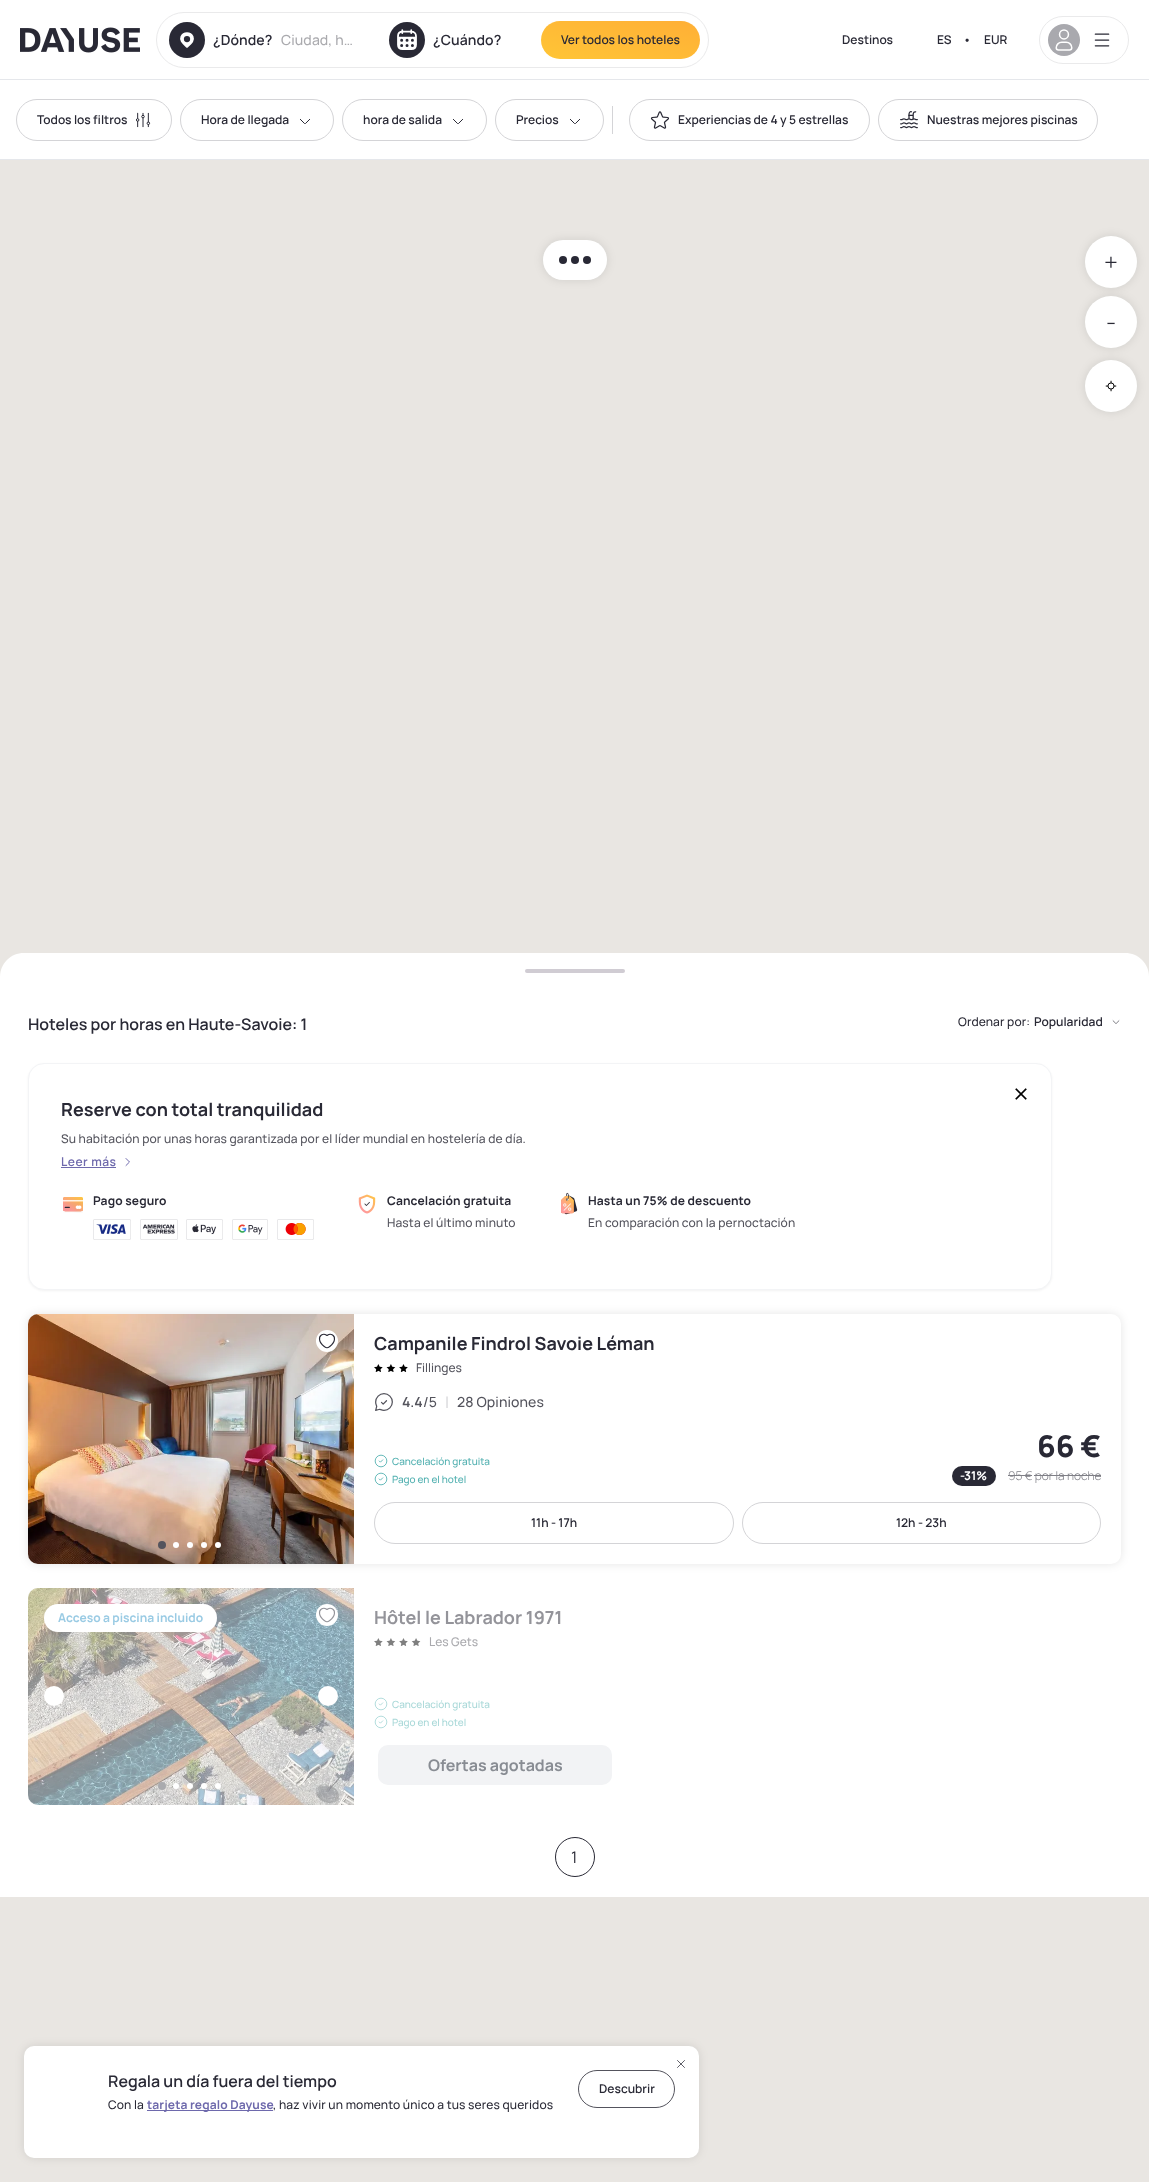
<svg xmlns="http://www.w3.org/2000/svg" width="1149" height="2182" viewBox="0 0 1149 2182">
  <defs>
    <linearGradient id="g1" gradientUnits="userSpaceOnUse" x1="629" y1="4.1" x2="612" y2="76"><stop offset="0" stop-color="rgb(255,175,54)"/><stop offset="1" stop-color="rgb(255,197,54)"/></linearGradient>
  </defs>
  <rect width="100%" height="100%" fill="rgb(255,255,255)"/>
  <rect x="0" y="79" width="1149" height="1" fill="rgb(229,231,235)"/>
  <image x="20" y="27" width="120" height="26" href="pic1.png"/>
  <rect x="156.5" y="12.5" width="552" height="55" rx="27.5" fill="none" stroke="rgb(234,234,235)"/>
  <image x="169" y="22" width="36" height="36" href="pic2.png"/>
  <text x="213" y="45" font-family="Manrope" font-size="14" font-weight="600" letter-spacing="0.1" fill="rgb(41,41,53)">¿Dónde?</text>
  <text x="281" y="45" font-family="Manrope" font-size="14" font-weight="500" letter-spacing="0.1" fill="rgb(170,170,174)">Ciudad, h…</text>
  <image x="389" y="22" width="36" height="36" href="pic3.png"/>
  <text x="433" y="45" font-family="Manrope" font-size="14" font-weight="600" letter-spacing="0.1" fill="rgb(41,41,53)">¿Cuándo?</text>
  <rect x="541" y="21" width="159" height="38" rx="19" fill="url(#g1)"/>
  <g font-family="Manrope" font-size="12" font-weight="600" fill="rgb(41,41,53)">
    <text x="561" y="44">Ver todos los hoteles</text>
    <text x="842" y="44">Destinos</text>
    <text x="937" y="44">ES</text>
    <text x="963" y="44">•</text>
    <text x="984" y="44">EUR</text>
  </g>
  <rect x="1039.5" y="16.5" width="89" height="47" rx="23.5" fill="none" stroke="rgb(234,234,235)"/>
  <circle cx="1064" cy="40" r="16" fill="rgb(169,169,174)"/>
  <image x="1055" y="29" width="18" height="22" href="pic4.png"/>
  <image x="1094" y="33" width="16" height="14" href="pic5.png"/>
  <rect x="0" y="159" width="1149" height="1" fill="rgb(229,231,235)"/>
  <rect x="16.5" y="99.5" width="155" height="41" rx="20.5" fill="none" stroke="rgb(212,212,215)"/>
  <text x="37" y="124" font-family="Manrope" font-size="12" font-weight="600" fill="rgb(41,41,53)">Todos los filtros</text>
  <image x="136" y="112" width="15" height="16" href="pic6.png"/>
  <rect x="180.5" y="99.5" width="153" height="41" rx="20.5" fill="none" stroke="rgb(212,212,215)"/>
  <text x="201" y="124" font-family="Manrope" font-size="12" font-weight="600" fill="rgb(41,41,53)">Hora de llegada</text>
  <image x="300" y="119" width="10" height="5" href="pic7.png"/>
  <rect x="342.5" y="99.5" width="144" height="41" rx="20.5" fill="none" stroke="rgb(212,212,215)"/>
  <text x="363" y="124" font-family="Manrope" font-size="12" font-weight="600" fill="rgb(41,41,53)">hora de salida</text>
  <image x="453" y="119" width="10" height="5" href="pic7.png"/>
  <rect x="495.5" y="99.5" width="108" height="41" rx="20.5" fill="none" stroke="rgb(212,212,215)"/>
  <text x="516" y="124" font-family="Manrope" font-size="12" font-weight="600" fill="rgb(41,41,53)">Precios</text>
  <image x="570" y="119" width="10" height="5" href="pic7.png"/>
  <rect x="612" y="106" width="1" height="28" fill="rgb(212,212,215)"/>
  <rect x="629.5" y="99.5" width="240" height="41" rx="20.5" fill="none" stroke="rgb(212,212,215)"/>
  <image x="650" y="111" width="19" height="18" href="pic8.png"/>
  <text x="678" y="124" font-family="Manrope" font-size="12" font-weight="600" fill="rgb(41,41,53)">Experiencias de 4 y 5 estrellas</text>
  <rect x="878.5" y="99.5" width="219" height="41" rx="20.5" fill="none" stroke="rgb(212,212,215)"/>
  <image x="900" y="111" width="18" height="18" href="pic9.png"/>
  <text x="927" y="124" font-family="Manrope" font-size="12" font-weight="600" fill="rgb(41,41,53)">Nuestras mejores piscinas</text>
  <rect x="0" y="160" width="1149" height="2022" fill="rgb(233,230,226)"/>
  <rect x="543" y="240" width="64" height="40" rx="20" fill="rgba(0,0,0,0.1)" filter="blur(5px)"/>
  <rect x="543" y="240" width="64" height="40" rx="20" fill="rgb(255,255,255)"/>
  <circle cx="563" cy="260" r="4" fill="rgb(41,41,53)"/>
  <circle cx="575" cy="260" r="4" fill="rgb(41,41,53)"/>
  <circle cx="587" cy="260" r="4" fill="rgb(41,41,53)"/>
  <rect x="1085" y="236" width="52" height="52" rx="26" fill="rgba(0,0,0,0.1)" filter="blur(5px)"/>
  <circle cx="1111" cy="262" r="26" fill="rgb(255,255,255)"/>
  <text x="1104" y="271" font-family="Manrope" font-size="24" font-weight="300" fill="rgb(41,41,53)">+</text>
  <rect x="1085" y="296" width="52" height="52" rx="26" fill="rgba(0,0,0,0.1)" filter="blur(5px)"/>
  <circle cx="1111" cy="322" r="26" fill="rgb(255,255,255)"/>
  <text x="1106" y="331" font-family="Manrope" font-size="24" font-weight="300" fill="rgb(41,41,53)">-</text>
  <rect x="1085" y="360" width="52" height="52" rx="26" fill="rgba(0,0,0,0.1)" filter="blur(5px)"/>
  <circle cx="1111" cy="386" r="26" fill="rgb(255,255,255)"/>
  <image x="1105" y="380" width="12" height="12" href="pic10.png"/>
  <path d="M24 953H1125C1138.5 953 1149 963.5 1149 977V1897H0V977C0 963.5 10.5 953 24 953Z" fill="rgb(255,255,255)"/>
  <rect x="525" y="969" width="100" height="4" rx="2" fill="rgb(208,204,211)"/>
  <text x="28" y="1030" font-family="Manrope" font-size="16" font-weight="600" fill="rgb(41,41,53)">Hoteles por horas en Haute-Savoie: 1</text>
  <text x="958" y="1026" font-family="Manrope" font-size="12" font-weight="500" letter-spacing="0.12" fill="rgb(41,41,53)">Ordenar por:</text>
  <text x="1034" y="1026" font-family="Manrope" font-size="12" font-weight="600" fill="rgb(41,41,53)">Popularidad</text>
  <image x="1112" y="1019" width="8" height="5" href="pic11.png"/>
  <rect x="28" y="1064" width="1024" height="227" rx="16" fill="rgba(0,0,0,0.05)" filter="blur(1px)"/>
  <rect x="28.5" y="1063.5" width="1023" height="226" rx="15.5" fill="rgb(255,255,255)" stroke="rgb(243,244,246)"/>
  <image x="1015" y="1088" width="12" height="12" href="pic12.png"/>
  <text x="61" y="1116" font-family="Manrope" font-size="18" font-weight="bold" fill="rgb(41,41,53)">Reserve con total tranquilidad</text>
  <text x="61" y="1143" font-family="Manrope" font-size="12" font-weight="500" letter-spacing="0.12" fill="rgb(84,84,93)">Su habitación por unas horas garantizada por el líder mundial en hostelería de día.</text>
  <text x="61" y="1166" font-family="Manrope" font-size="12" font-weight="600" letter-spacing="0.5" fill="rgb(110,105,172)">Leer más</text>
  <rect x="61" y="1167" width="55" height="1" fill="rgb(110,105,172)"/>
  <path d="M126 1158.5L129.5 1162L126 1165.5" fill="none" stroke="rgb(110,105,172)" stroke-linecap="round" stroke-linejoin="round"/>
  <image x="63" y="1197" width="20" height="16" href="pic13.png"/>
  <text x="93" y="1205" font-family="Manrope" font-size="12" font-weight="bold" letter-spacing="0.12" fill="rgb(41,41,53)">Pago seguro</text>
  <image x="93" y="1219" width="38" height="21" href="pic14.png"/>
  <image x="140" y="1219" width="38" height="21" href="pic15.png"/>
  <image x="186" y="1219" width="37" height="21" href="pic16.png"/>
  <image x="232" y="1219" width="36" height="21" href="pic17.png"/>
  <image x="277" y="1219" width="37" height="21" href="pic18.png"/>
  <image x="358" y="1194" width="18" height="20" href="pic19.png"/>
  <text x="387" y="1205" font-family="Manrope" font-size="12" font-weight="bold" letter-spacing="0.12" fill="rgb(41,41,53)">Cancelación gratuita</text>
  <text x="387" y="1227" font-family="Manrope" font-size="12" font-weight="500" letter-spacing="0.12" fill="rgb(84,84,93)">Hasta el último minuto</text>
  <image x="561" y="1192" width="17" height="23" href="pic20.png"/>
  <text x="588" y="1205" font-family="Manrope" font-size="12" font-weight="bold" letter-spacing="0.12" fill="rgb(41,41,53)">Hasta un 75% de descuento</text>
  <text x="588" y="1227" font-family="Manrope" font-size="12" font-weight="500" letter-spacing="0.12" fill="rgb(84,84,93)">En comparación con la pernoctación</text>
  <rect x="28" y="1314" width="1093" height="250" rx="10" fill="rgba(0,0,0,0.1)" filter="blur(5px)"/>
  <rect x="28" y="1314" width="1093" height="250" rx="10" fill="rgb(255,255,255)"/>
  <image x="28" y="1314" width="326" height="250" href="pic21.png"/>
  <circle cx="162" cy="1545" r="4" fill="rgb(84,84,93)"/>
  <circle cx="176" cy="1545" r="3" fill="rgb(255,255,255)"/>
  <circle cx="190" cy="1545" r="3" fill="rgb(255,255,255)"/>
  <circle cx="204" cy="1545" r="3" fill="rgb(255,255,255)"/>
  <circle cx="218" cy="1545" r="3" fill="rgb(255,255,255)"/>
  <circle cx="327" cy="1341" r="11" fill="rgb(255,255,255)"/>
  <image x="318" y="1333" width="17" height="16" href="pic22.png"/>
  <text x="374" y="1350" font-family="Manrope" font-size="18" font-weight="bold" fill="rgb(41,41,53)">Campanile Findrol Savoie Léman</text>
  <image x="374" y="1364" width="34" height="8" href="pic23.png"/>
  <text x="416" y="1372" font-family="Manrope" font-size="12" font-weight="500" fill="rgb(84,84,93)">Fillinges</text>
  <image x="375" y="1393" width="18" height="18" href="pic24.png"/>
  <text x="402" y="1407" font-family="Manrope" font-size="14" font-weight="600" letter-spacing="0.1" fill="rgb(84,84,93)">4.4</text>
  <text x="423" y="1407" font-family="Manrope" font-size="14" font-weight="500" letter-spacing="0.1" fill="rgb(84,84,93)">/5</text>
  <text x="445" y="1408" font-family="Manrope" font-size="16" fill="rgb(212,212,215)">|</text>
  <text x="457" y="1407" font-family="Manrope" font-size="14" font-weight="500" letter-spacing="0.1" fill="rgb(84,84,93)">28 Opiniones</text>
  <image x="374" y="1454" width="14" height="14" href="pic25.png"/>
  <text x="392" y="1465" font-family="Manrope" font-size="10" font-weight="500" fill="rgb(81,176,176)">Cancelación gratuita</text>
  <image x="374" y="1472" width="14" height="14" href="pic25.png"/>
  <text x="392" y="1483" font-family="Manrope" font-size="10" font-weight="500" fill="rgb(81,176,176)">Pago en el hotel</text>
  <text x="1037" y="1457" font-family="Manrope" font-size="30" font-weight="800" fill="rgb(41,41,53)">66 €</text>
  <rect x="952" y="1466" width="44" height="20" rx="10" fill="rgb(41,41,53)"/>
  <g font-family="Manrope" font-size="12" font-weight="bold" fill="rgb(255,255,255)">
    <text x="960" y="1480">-</text>
    <text x="964" y="1480">31%</text>
  </g>
  <text x="1008" y="1480" font-family="Manrope" font-size="12" font-weight="300" fill="rgb(127,127,134)">95 € por la noche</text>
  <rect x="1008" y="1475" width="24" height="1" fill="rgb(127,127,134)"/>
  <rect x="1034" y="1475" width="67" height="1" fill="rgb(127,127,134)"/>
  <rect x="374.5" y="1502.5" width="359" height="41" rx="20.5" fill="none" stroke="rgb(212,212,215)"/>
  <text x="531" y="1527" font-family="Manrope" font-size="12" font-weight="600" fill="rgb(41,41,53)">11h - 17h</text>
  <rect x="742.5" y="1502.5" width="358" height="41" rx="20.5" fill="none" stroke="rgb(212,212,215)"/>
  <text x="896" y="1527" font-family="Manrope" font-size="12" font-weight="600" fill="rgb(41,41,53)">12h - 23h</text>
  <image x="28" y="1588" width="326" height="217" href="pic26.png"/>
  <circle cx="54" cy="1696" r="10" fill="rgb(255,255,255)"/>
  <circle cx="328" cy="1696" r="10" fill="rgb(255,255,255)"/>
  <circle cx="162" cy="1786" r="4" fill="rgb(170,170,174)"/>
  <circle cx="176" cy="1786" r="3" fill="rgb(255,255,255)"/>
  <circle cx="190" cy="1786" r="3" fill="rgb(255,255,255)"/>
  <circle cx="204" cy="1786" r="3" fill="rgb(255,255,255)"/>
  <circle cx="218" cy="1786" r="3" fill="rgb(255,255,255)"/>
  <circle cx="327" cy="1615" r="11" fill="rgb(255,255,255)"/>
  <image x="318" y="1607" width="17" height="16" href="pic27.png"/>
  <rect x="44" y="1604" width="173" height="28" rx="14" fill="rgb(255,255,255)"/>
  <text x="58" y="1622" font-family="Manrope" font-size="12" font-weight="bold" fill="rgb(154,203,228)">Acceso a piscina incluido</text>
  <text x="374" y="1624" font-family="Manrope" font-size="18" font-weight="bold" fill="rgb(148,148,154)">Hôtel le Labrador 1971</text>
  <image x="374" y="1638" width="47" height="8" href="pic28.png"/>
  <text x="429" y="1646" font-family="Manrope" font-size="12" font-weight="500" fill="rgb(170,170,174)">Les Gets</text>
  <image x="374" y="1697" width="14" height="14" href="pic29.png"/>
  <text x="392" y="1708" font-family="Manrope" font-size="10" font-weight="500" fill="rgb(168,216,216)">Cancelación gratuita</text>
  <image x="374" y="1715" width="14" height="14" href="pic29.png"/>
  <text x="392" y="1726" font-family="Manrope" font-size="10" font-weight="500" fill="rgb(168,216,216)">Pago en el hotel</text>
  <rect x="378" y="1745" width="234" height="40" rx="10" fill="rgb(242,243,245)"/>
  <text x="428" y="1771" font-family="Manrope" font-size="16" font-weight="bold" fill="rgb(136,140,147)">Ofertas agotadas</text>
  <circle cx="575" cy="1857" r="19.5" fill="none" stroke="rgb(41,41,53)"/>
  <text x="571" y="1863" font-family="Manrope" font-size="16" fill="rgb(41,41,53)">1</text>
  <rect x="24" y="2046" width="675" height="112" rx="10" fill="rgba(0,0,0,0.1)" filter="blur(5px)"/>
  <rect x="24" y="2046" width="675" height="112" rx="10" fill="rgb(255,255,255)"/>
  <image x="677" y="2060" width="8" height="8" href="pic30.png"/>
  <text x="108" y="2087" font-family="Manrope" font-size="16" font-weight="600" fill="rgb(41,41,53)">Regala un día fuera del tiempo</text>
  <text x="108" y="2109" font-family="Manrope" font-size="12" font-weight="500" letter-spacing="0.12" fill="rgb(41,41,53)">Con la</text>
  <rect x="147" y="2110" width="126" height="1" fill="rgb(110,105,172)"/>
  <text x="147" y="2109" font-family="Manrope" font-size="12" font-weight="bold" letter-spacing="0.12" fill="rgb(110,105,172)">tarjeta regalo Dayuse</text>
  <text x="273" y="2109" font-family="Manrope" font-size="12" font-weight="500" letter-spacing="0.12" fill="rgb(41,41,53)">, haz vivir un momento único a tus seres queridos</text>
  <rect x="578.5" y="2070.5" width="96" height="37" rx="18.5" fill="none" stroke="rgb(84,84,93)"/>
  <text x="599" y="2093" font-family="Manrope" font-size="12" font-weight="600" fill="rgb(41,41,53)">Descubrir</text>
</svg>
